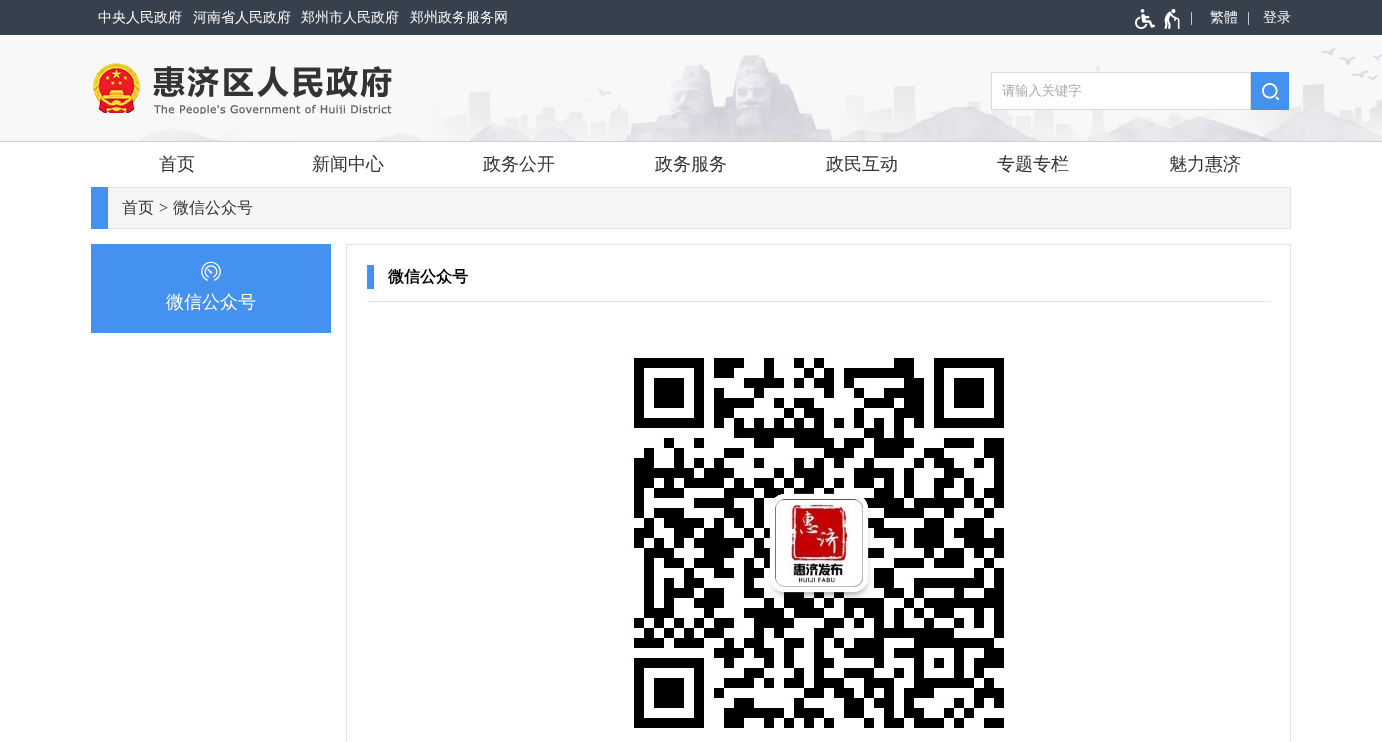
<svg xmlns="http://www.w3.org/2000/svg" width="1382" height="742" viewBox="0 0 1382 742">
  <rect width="100%" height="100%" fill="rgb(255,255,255)"/>
  <rect x="0" y="0" width="1382" height="35" fill="rgb(55,64,77)"/>
  <g font-family="WenQuanYi Zen Hei" font-size="14" font-weight="500" fill="rgb(248,248,248)">
    <text x="98" y="22">中央人民政府</text>
    <text x="193" y="22">河南省人民政府</text>
    <text x="301" y="22">郑州市人民政府</text>
    <text x="410" y="22">郑州政务服务网</text>
  </g>
  <image x="1135" y="9" width="20" height="20" href="pic1.png"/>
  <image x="1164" y="9" width="16" height="20" href="pic2.png"/>
  <text x="1190" y="22" font-family="Liberation Serif" font-size="14" fill="rgb(248,248,248)">|</text>
  <text x="1210" y="22" font-family="WenQuanYi Zen Hei" font-size="14" font-weight="500" fill="rgb(248,248,248)">繁體</text>
  <text x="1247" y="22" font-family="Liberation Serif" font-size="14" fill="rgb(248,248,248)">|</text>
  <text x="1263" y="22" font-family="WenQuanYi Zen Hei" font-size="14" font-weight="500" fill="rgb(248,248,248)">登录</text>
  <rect x="0" y="35" width="1382" height="106" fill="rgb(248,248,248)"/>
  <image x="138" y="48" width="1244" height="93" href="pic3.png"/>
  <rect x="0" y="141" width="1382" height="1" fill="rgb(208,208,208)"/>
  <image x="93" y="63" width="299" height="51" href="pic4.png"/>
  <rect x="991.5" y="72.5" width="259" height="37" fill="rgb(255,255,255)" stroke="rgb(219,217,217)"/>
  <text x="1002" y="95" font-family="WenQuanYi Zen Hei" font-size="13.25" font-weight="500" fill="rgb(170,170,170)">请输入关键字</text>
  <rect x="1251" y="72" width="38" height="38" fill="rgb(68,145,240)"/>
  <image x="1262" y="83" width="17" height="17" href="pic5.png"/>
  <g font-family="WenQuanYi Zen Hei" font-size="18" font-weight="500" fill="rgb(51,51,51)">
    <text x="159" y="170">首页</text>
    <text x="312" y="170">新闻中心</text>
    <text x="483" y="170">政务公开</text>
    <text x="655" y="170">政务服务</text>
    <text x="826" y="170">政民互动</text>
    <text x="997" y="170">专题专栏</text>
    <text x="1169" y="170">魅力惠济</text>
  </g>
  <rect x="108" y="188" width="1182" height="40" fill="rgb(245,245,245)"/>
  <rect x="91.5" y="187.5" width="1199" height="41" fill="none" stroke="rgb(227,227,227)"/>
  <rect x="91" y="187" width="17" height="42" fill="rgb(68,145,240)"/>
  <text x="122" y="213" font-family="WenQuanYi Zen Hei" font-size="16" font-weight="500" fill="rgb(51,51,51)">首页</text>
  <text x="159" y="213" font-family="Liberation Serif" font-size="16" fill="rgb(51,51,51)">&gt;</text>
  <text x="173" y="213" font-family="WenQuanYi Zen Hei" font-size="16" font-weight="500" fill="rgb(51,51,51)">微信公众号</text>
  <rect x="346.5" y="244.5" width="944" height="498" fill="none" stroke="rgb(227,227,227)"/>
  <rect x="367" y="301" width="903" height="1" fill="rgb(226,226,226)"/>
  <rect x="367" y="265" width="7" height="24" fill="rgb(68,145,240)"/>
  <text x="388" y="282" font-family="WenQuanYi Zen Hei" font-size="16" font-weight="bold" fill="rgb(0,0,0)">微信公众号</text>
  <image x="629" y="352" width="375" height="376" href="pic6.png"/>
  <rect x="91" y="244" width="240" height="89" fill="rgb(68,145,240)"/>
  <image x="201" y="261" width="20" height="20" href="pic7.png"/>
  <text x="166" y="308" font-family="WenQuanYi Zen Hei" font-size="18" font-weight="500" fill="rgb(255,255,255)">微信公众号</text>
</svg>
